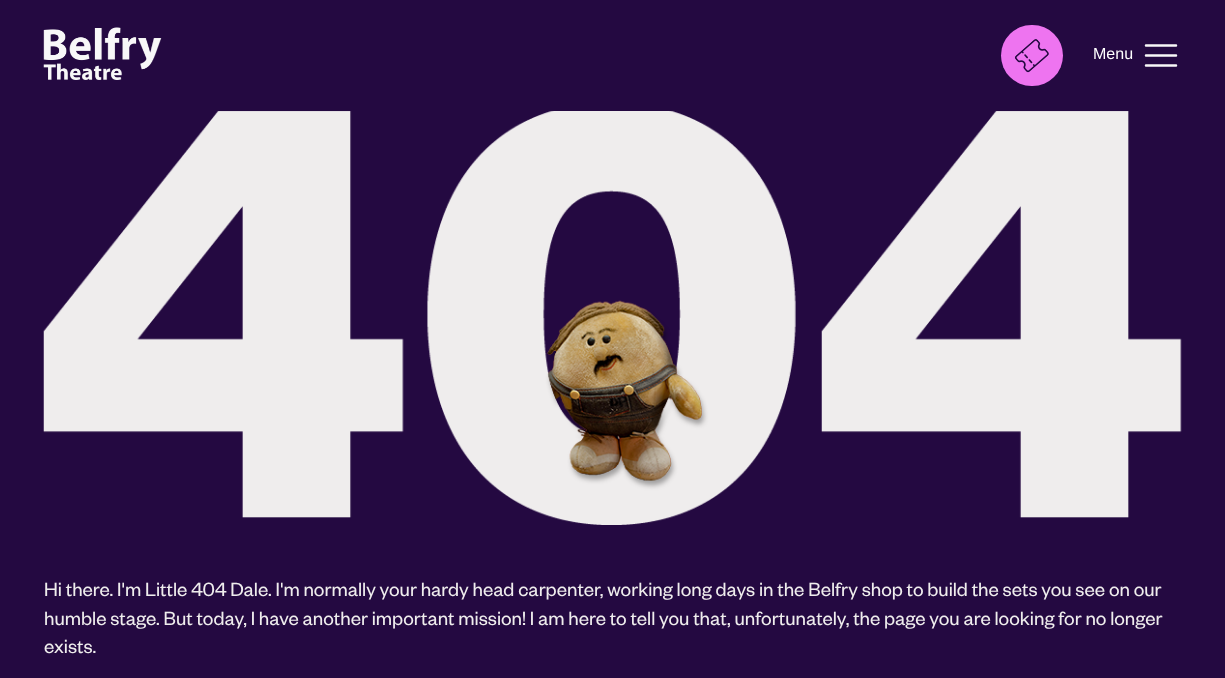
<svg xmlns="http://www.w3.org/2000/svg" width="1225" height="678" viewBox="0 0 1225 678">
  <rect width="100%" height="100%" fill="rgb(36,9,65)"/>
  <image x="43" y="27" width="119" height="53" href="pic1.png"/>
  <rect x="1001" y="25" width="62" height="61" rx="30.5" fill="rgb(238,116,240)"/>
  <image x="1014" y="39" width="35" height="34" href="pic2.png"/>
  <text x="1093" y="59" font-family="Liberation Sans" font-size="16" fill="rgb(255,255,255)">Menu</text>
  <path d="M1146 45.5H1176M1146 55.5H1176M1146 65.5H1176" fill="none" stroke="rgb(248,248,248)" stroke-width="2.5" stroke-linecap="round"/>
  <image x="43" y="111" width="1139" height="414" href="pic3.png"/>
  <g font-family="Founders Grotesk" font-size="21" fill="rgb(239,237,237)">
    <text>
      <tspan x="44" y="596">Hi there. I'm Little 404 Dale. I'm normally your hardy head carpenter, working long days in the Belfry shop to build the sets you see on our</tspan>
      <tspan x="44" y="625">humble stage. But today, I have another important mission! I am here to tell you that, unfortunately, the page you are looking for no longer</tspan>
      <tspan x="44" y="653">exists.</tspan>
    </text>
  </g>
</svg>
